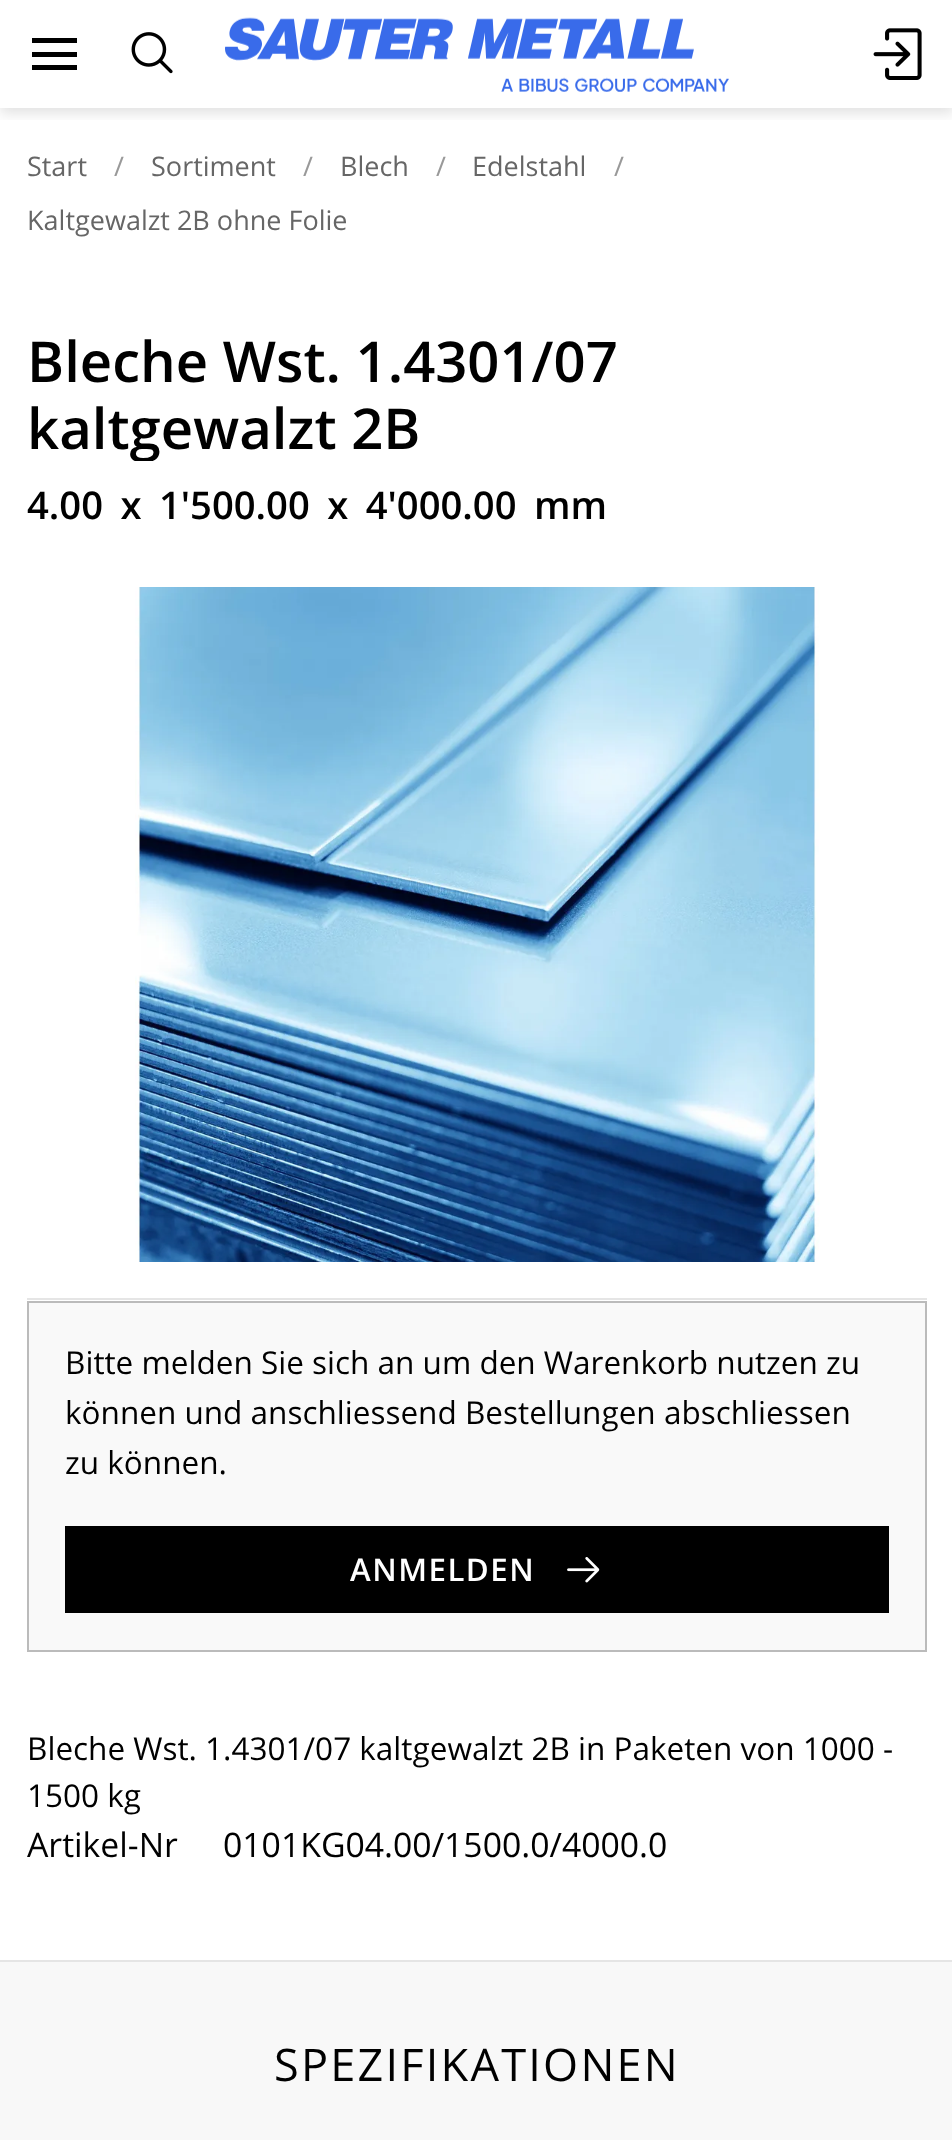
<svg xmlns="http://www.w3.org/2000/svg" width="952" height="2140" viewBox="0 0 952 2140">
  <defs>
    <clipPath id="clip1"><rect x="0" y="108" width="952" height="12"/></clipPath>
    <clipPath id="clip2"><rect x="27" y="326" width="900" height="135"/></clipPath>
  </defs>
  <rect width="100%" height="100%" fill="rgb(255,255,255)"/>
  <g clip-path="url(#clip1)">
    <rect x="0" y="5" width="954" height="108" fill="rgba(1,1,1,0.12)" filter="blur(7px)"/>
  </g>
  <rect x="32" y="38" width="45" height="5" fill="rgb(0,0,0)"/>
  <rect x="32" y="52" width="45" height="5" fill="rgb(0,0,0)"/>
  <rect x="32" y="65" width="45" height="5" fill="rgb(0,0,0)"/>
  <image x="131" y="32" width="42" height="42" href="pic1.png"/>
  <image x="225" y="17" width="504" height="75" href="pic2.png"/>
  <image x="873" y="28" width="49" height="52" href="pic3.png"/>
  <text x="27" y="176" font-family="Open Sans" font-size="27" fill="rgb(102,102,102)">Start</text>
  <text x="114" y="176" font-family="Open Sans" font-size="27" fill="rgb(153,153,153)">/</text>
  <text x="151" y="176" font-family="Open Sans" font-size="27" fill="rgb(102,102,102)">Sortiment</text>
  <text x="303" y="176" font-family="Open Sans" font-size="27" fill="rgb(153,153,153)">/</text>
  <text x="340" y="176" font-family="Open Sans" font-size="27" fill="rgb(102,102,102)">Blech</text>
  <text x="436" y="176" font-family="Open Sans" font-size="27" fill="rgb(153,153,153)">/</text>
  <text x="472" y="176" font-family="Open Sans" font-size="27" fill="rgb(102,102,102)">Edelstahl</text>
  <text x="614" y="176" font-family="Open Sans" font-size="27" fill="rgb(153,153,153)">/</text>
  <text x="27" y="230" font-family="Open Sans" font-size="27" fill="rgb(102,102,102)">Kaltgewalzt 2B ohne Folie</text>
  <text x="27" y="382" font-family="Open Sans" font-size="56.25" font-weight="600" fill="rgb(0,0,0)">Bleche Wst. 1.4301/07</text>
  <g clip-path="url(#clip2)">
    <text x="27" y="449" font-family="Open Sans" font-size="56.25" font-weight="600" fill="rgb(0,0,0)">kaltgewalzt 2B</text>
  </g>
  <text x="27" y="519" word-spacing="7.5" font-family="Open Sans" font-size="38.25" font-weight="600" fill="rgb(0,0,0)">4.00 x 1'500.00 x 4'000.00 mm</text>
  <rect x="27" y="1298" width="900" height="2" fill="rgb(229,229,229)"/>
  <image x="135" y="587" width="685" height="675" href="pic4.png"/>
  <rect x="28" y="1302" width="898" height="349" fill="rgb(249,249,249)" stroke="rgb(187,187,187)" stroke-width="2"/>
  <g font-family="Open Sans" font-size="31.5" fill="rgb(0,0,0)">
    <text>
      <tspan x="65" y="1374">Bitte melden Sie sich an um den Warenkorb nutzen zu</tspan>
      <tspan x="65" y="1424">können und anschliessend Bestellungen abschliessen</tspan>
      <tspan x="65" y="1474">zu können.</tspan>
    </text>
  </g>
  <rect x="65" y="1526" width="824" height="87" fill="rgb(0,0,0)"/>
  <text x="350" y="1581" font-family="Open Sans" font-size="31.25" font-weight="600" letter-spacing="1.5" fill="rgb(255,255,255)">ANMELDEN</text>
  <image x="567" y="1557" width="33" height="26" href="pic5.png"/>
  <g font-family="Open Sans" font-size="31.5" fill="rgb(0,0,0)">
    <text>
      <tspan x="27" y="1760">Bleche Wst. 1.4301/07 kaltgewalzt 2B in Paketen von 1000 -</tspan>
      <tspan x="27" y="1807">1500 kg</tspan>
    </text>
  </g>
  <g font-family="Open Sans" font-size="33.75" fill="rgb(0,0,0)">
    <text x="27" y="1857">Artikel-Nr</text>
    <text x="223" y="1857">0101KG04.00/1500.0/4000.0</text>
  </g>
  <rect x="0" y="1962" width="952" height="178" fill="rgb(248,248,248)"/>
  <rect x="0" y="1960" width="952" height="2" fill="rgb(229,229,229)"/>
  <text x="274" y="2081" font-family="Open Sans" font-size="45" letter-spacing="2.25" fill="rgb(0,0,0)">SPEZIFIKATIONEN</text>
</svg>
